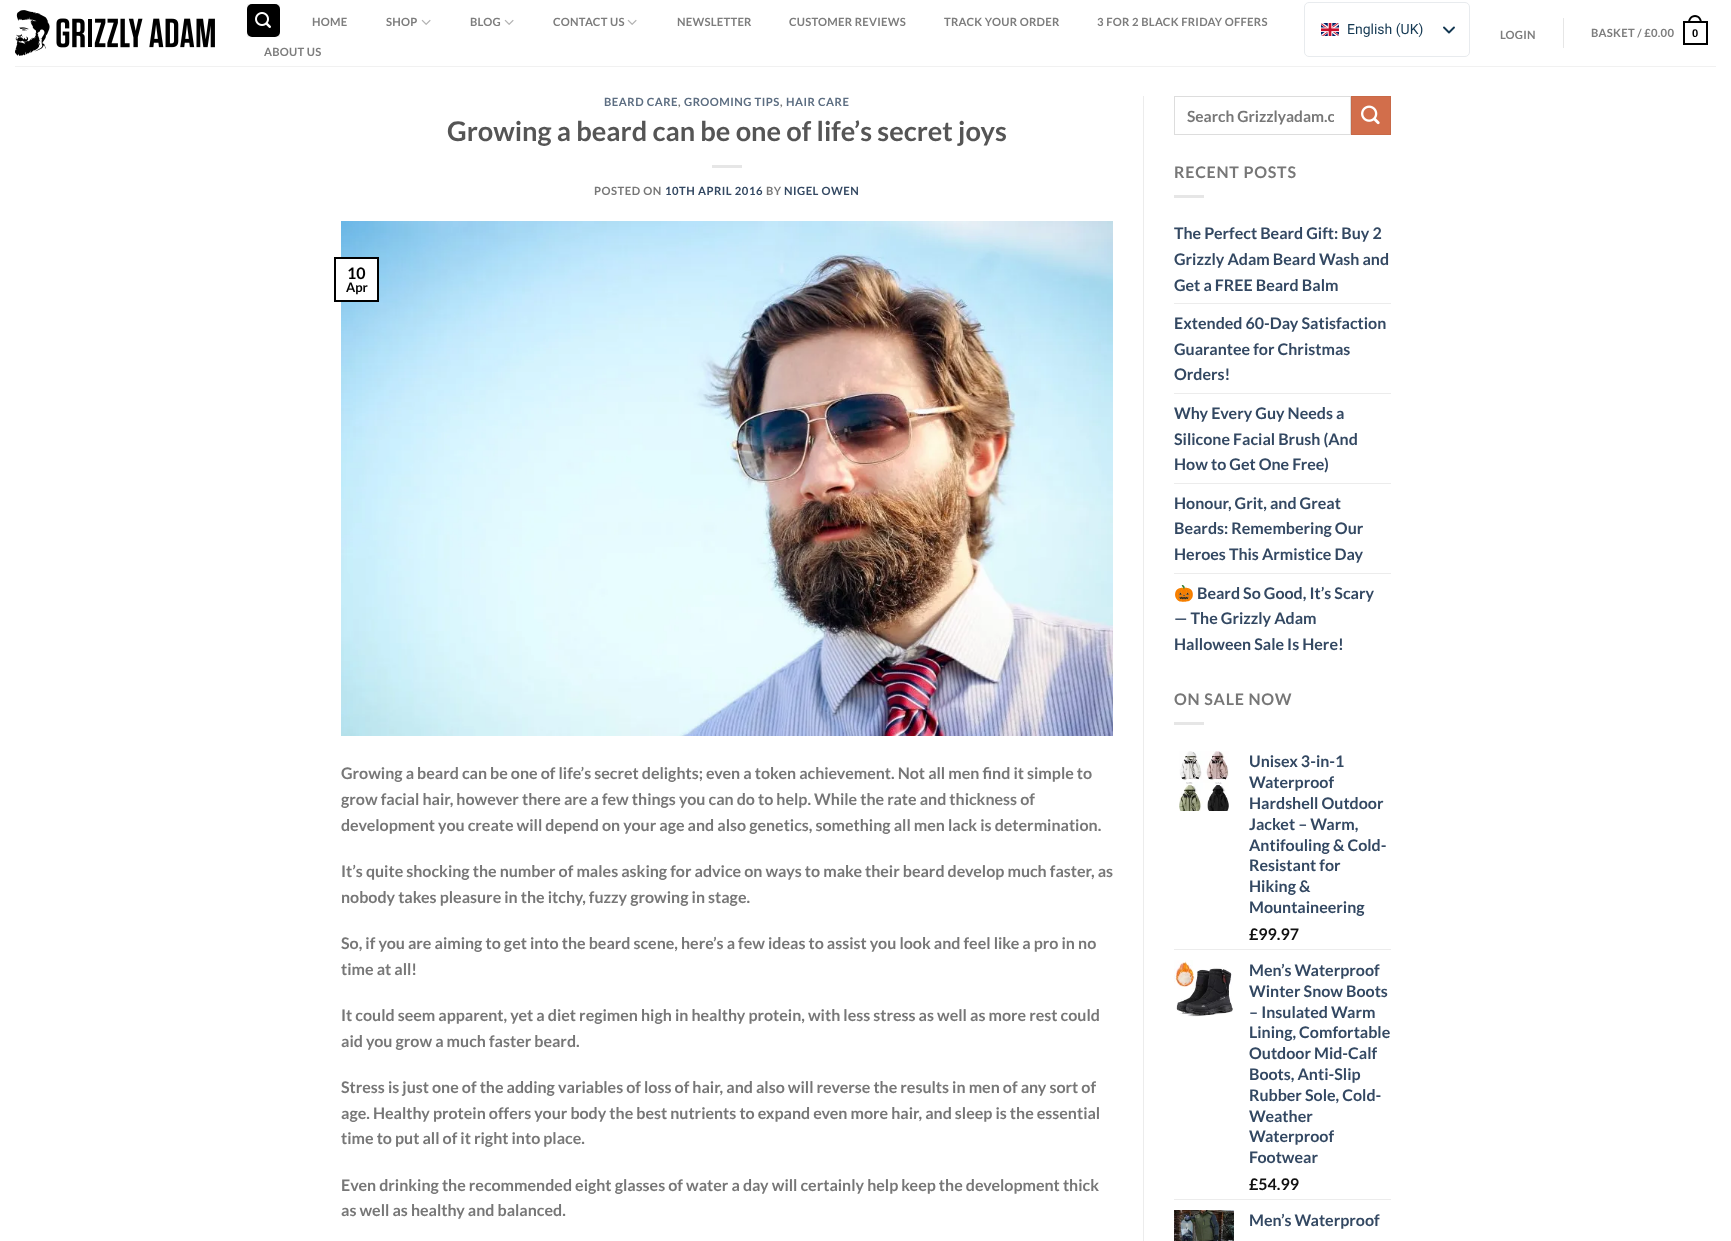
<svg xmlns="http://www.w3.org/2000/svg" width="1731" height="1241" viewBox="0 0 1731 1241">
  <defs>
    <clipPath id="clip1"><rect x="1187" y="107" width="147" height="18"/></clipPath>
  </defs>
  <rect width="100%" height="100%" fill="rgb(255,255,255)"/>
  <image x="15" y="10" width="200" height="46" href="pic1.png"/>
  <rect x="247" y="4" width="33" height="33" rx="5" fill="rgb(0,0,0)"/>
  <rect x="247.5" y="4.5" width="32" height="32" fill="none" stroke="rgba(0,0,0,0.05)"/>
  <image x="255" y="12" width="16" height="16" href="pic2.png"/>
  <g font-family="Lato" font-size="11.25" font-weight="bold" letter-spacing="0.25" fill="rgb(125,125,125)">
    <text x="312" y="26">HOME</text>
    <text x="386" y="26">SHOP</text>
  </g>
  <image x="421" y="19" width="10" height="6" href="pic3.png"/>
  <text x="470" y="26" font-family="Lato" font-size="11.25" font-weight="bold" letter-spacing="0.25" fill="rgb(125,125,125)">BLOG</text>
  <image x="504" y="19" width="10" height="6" href="pic3.png"/>
  <text x="553" y="26" font-family="Lato" font-size="11.25" font-weight="bold" letter-spacing="0.25" fill="rgb(125,125,125)">CONTACT US</text>
  <image x="627" y="19" width="10" height="6" href="pic3.png"/>
  <g font-family="Lato" font-size="11.25" font-weight="bold" letter-spacing="0.25" fill="rgb(125,125,125)">
    <text x="677" y="26">NEWSLETTER</text>
    <text x="789" y="26">CUSTOMER REVIEWS</text>
    <text x="944" y="26">TRACK YOUR ORDER</text>
    <text x="1097" y="26">3 FOR 2 BLACK FRIDAY OFFERS</text>
    <text x="264" y="56">ABOUT US</text>
  </g>
  <rect x="1304.5" y="2.5" width="165" height="54" rx="4.5" fill="none" stroke="rgb(232,235,238)"/>
  <image x="1321" y="23" width="18" height="13" href="pic4.png"/>
  <text x="1347" y="34" font-family="Roboto" font-size="14" fill="rgb(20,56,82)">English (UK)</text>
  <path d="M1444 27.5L1449 32.5L1454 27.5" fill="none" stroke="rgb(20,56,82)" stroke-width="1.9" stroke-linecap="round" stroke-linejoin="round"/>
  <text x="1500" y="39" font-family="Lato" font-size="11.25" font-weight="bold" letter-spacing="0.25" fill="rgb(125,125,125)">LOGIN</text>
  <rect x="1563" y="18" width="1" height="30" fill="rgb(230,230,230)"/>
  <text x="1591" y="37" font-family="Lato" font-size="11.25" font-weight="bold" letter-spacing="0.25" fill="rgb(125,125,125)">BASKET / £0.00</text>
  <rect x="1684" y="22" width="23" height="22" fill="none" stroke="rgb(0,0,0)" stroke-width="2"/>
  <path d="M1695 15C1699.5 15 1702 19 1702 23H1688C1688 19 1690.5 15 1695 15ZM1695 17C1698.5 17 1700 20 1700 23H1690C1690 20 1691.5 17 1695 17Z" fill="rgb(0,0,0)" fill-rule="evenodd"/>
  <text x="1692" y="37" font-family="Liberation Sans" font-size="11.25" font-weight="bold" letter-spacing="0.25" fill="rgb(0,0,0)">0</text>
  <rect x="15" y="66" width="1701" height="1" fill="rgb(241,241,241)"/>
  <text x="604" y="106" font-family="Lato" font-size="11.25" font-weight="bold" letter-spacing="0.5" fill="rgb(92,109,129)">BEARD CARE</text>
  <text x="678" y="106" font-family="Lato" font-size="11.25" font-weight="bold" letter-spacing="0.5" fill="rgb(119,119,119)">,</text>
  <text x="684" y="106" font-family="Lato" font-size="11.25" font-weight="bold" letter-spacing="0.5" fill="rgb(92,109,129)">GROOMING TIPS</text>
  <text x="780" y="106" font-family="Lato" font-size="11.25" font-weight="bold" letter-spacing="0.5" fill="rgb(119,119,119)">,</text>
  <text x="786" y="106" font-family="Lato" font-size="11.25" font-weight="bold" letter-spacing="0.5" fill="rgb(92,109,129)">HAIR CARE</text>
  <text x="447" y="141" font-family="Lato" font-size="27.2" font-weight="bold" fill="rgb(85,85,85)">Growing a beard can be one of life’s secret joys</text>
  <rect x="712" y="165" width="30" height="3" fill="rgb(230,230,230)"/>
  <text x="594" y="195" font-family="Lato" font-size="11.25" font-weight="bold" letter-spacing="0.5" fill="rgb(119,119,119)">POSTED ON</text>
  <text x="665" y="195" font-family="Lato" font-size="11.25" font-weight="bold" letter-spacing="0.5" fill="rgb(51,72,98)">10TH APRIL 2016</text>
  <text x="766" y="195" font-family="Lato" font-size="11.25" font-weight="bold" letter-spacing="0.5" fill="rgb(119,119,119)">BY</text>
  <text x="784" y="195" font-family="Lato" font-size="11.25" font-weight="bold" letter-spacing="0.5" fill="rgb(51,72,98)">NIGEL OWEN</text>
  <image x="341" y="221" width="772" height="515" href="pic5.png"/>
  <rect x="341" y="259" width="36" height="41" fill="rgb(255,255,255)"/>
  <rect x="335" y="258" width="43" height="43" fill="none" stroke="rgb(0,0,0)" stroke-width="2"/>
  <text x="347" y="279" font-family="Lato" font-size="16" font-weight="bold" fill="rgb(0,0,0)">10</text>
  <text x="346" y="292" font-family="Lato" font-size="13" font-weight="bold" fill="rgb(0,0,0)">Apr</text>
  <g font-family="Lato" font-size="16" font-weight="bold" fill="rgb(119,119,119)">
    <text>
      <tspan x="341" y="779">Growing a beard can be one of life’s secret delights; even a token achievement. Not all men find it simple to</tspan>
      <tspan x="341" y="805">grow facial hair, however there are a few things you can do to help. While the rate and thickness of</tspan>
      <tspan x="341" y="831">development you create will depend on your age and also genetics, something all men lack is determination.</tspan>
    </text>
    <text>
      <tspan x="341" y="877">It’s quite shocking the number of males asking for advice on ways to make their beard develop much faster, as</tspan>
      <tspan x="341" y="903">nobody takes pleasure in the itchy, fuzzy growing in stage.</tspan>
    </text>
    <text>
      <tspan x="341" y="949">So, if you are aiming to get into the beard scene, here’s a few ideas to assist you look and feel like a pro in no</tspan>
      <tspan x="341" y="975">time at all!</tspan>
    </text>
    <text>
      <tspan x="341" y="1021">It could seem apparent, yet a diet regimen high in healthy protein, with less stress as well as more rest could</tspan>
      <tspan x="341" y="1047">aid you grow a much faster beard.</tspan>
    </text>
    <text>
      <tspan x="341" y="1093">Stress is just one of the adding variables of loss of hair, and also will reverse the results in men of any sort of</tspan>
      <tspan x="341" y="1119">age. Healthy protein offers your body the best nutrients to expand even more hair, and sleep is the essential</tspan>
      <tspan x="341" y="1144">time to put all of it right into place.</tspan>
    </text>
    <text>
      <tspan x="341" y="1191">Even drinking the recommended eight glasses of water a day will certainly help keep the development thick</tspan>
      <tspan x="341" y="1216">as well as healthy and balanced.</tspan>
    </text>
  </g>
  <rect x="1143" y="96" width="1" height="1145" fill="rgb(236,236,236)"/>
  <rect x="1174.5" y="96.5" width="176" height="38" fill="none" stroke="rgb(221,221,221)"/>
  <g clip-path="url(#clip1)">
    <text x="1187" y="122" font-family="Lato" font-size="15.5" font-weight="bold" fill="rgb(119,119,119)">Search Grizzlyadam.c</text>
  </g>
  <rect x="1351.5" y="96.5" width="39" height="38" fill="rgb(210,110,75)" stroke="rgb(200,105,71)"/>
  <image x="1361" y="105" width="19" height="20" href="pic6.png"/>
  <text x="1174" y="178" font-family="Lato" font-size="16" font-weight="bold" letter-spacing="0.75" fill="rgb(119,119,119)">RECENT POSTS</text>
  <rect x="1174" y="195" width="30" height="3" fill="rgb(230,230,230)"/>
  <g font-family="Lato" font-size="16" font-weight="bold" fill="rgb(51,72,98)">
    <text>
      <tspan x="1174" y="239">The Perfect Beard Gift: Buy 2</tspan>
      <tspan x="1174" y="265">Grizzly Adam Beard Wash and</tspan>
      <tspan x="1174" y="291">Get a FREE Beard Balm</tspan>
    </text>
  </g>
  <rect x="1174" y="303" width="217" height="1" fill="rgb(236,236,236)"/>
  <g font-family="Lato" font-size="16" font-weight="bold" fill="rgb(51,72,98)">
    <text>
      <tspan x="1174" y="329">Extended 60-Day Satisfaction</tspan>
      <tspan x="1174" y="355">Guarantee for Christmas</tspan>
      <tspan x="1174" y="380">Orders!</tspan>
    </text>
  </g>
  <rect x="1174" y="393" width="217" height="1" fill="rgb(236,236,236)"/>
  <g font-family="Lato" font-size="16" font-weight="bold" fill="rgb(51,72,98)">
    <text>
      <tspan x="1174" y="419">Why Every Guy Needs a</tspan>
      <tspan x="1174" y="445">Silicone Facial Brush (And</tspan>
      <tspan x="1174" y="470">How to Get One Free)</tspan>
    </text>
  </g>
  <rect x="1174" y="483" width="217" height="1" fill="rgb(236,236,236)"/>
  <g font-family="Lato" font-size="16" font-weight="bold" fill="rgb(51,72,98)">
    <text>
      <tspan x="1174" y="509">Honour, Grit, and Great</tspan>
      <tspan x="1174" y="534">Beards: Remembering Our</tspan>
      <tspan x="1174" y="560">Heroes This Armistice Day</tspan>
    </text>
  </g>
  <rect x="1174" y="573" width="217" height="1" fill="rgb(236,236,236)"/>
  <text x="1174" y="599" font-family="Noto Color Emoji" font-size="16" fill="rgb(51,72,98)">🎃</text>
  <g font-family="Lato" font-size="16" font-weight="bold" fill="rgb(51,72,98)">
    <text x="1197" y="599">Beard So Good, It’s Scary</text>
    <text>
      <tspan x="1174" y="624">— The Grizzly Adam</tspan>
      <tspan x="1174" y="650">Halloween Sale Is Here!</tspan>
    </text>
  </g>
  <text x="1174" y="705" font-family="Lato" font-size="16" font-weight="bold" letter-spacing="0.75" fill="rgb(119,119,119)">ON SALE NOW</text>
  <rect x="1174" y="722" width="30" height="3" fill="rgb(230,230,230)"/>
  <image x="1179" y="751" width="50" height="60" href="pic7.png"/>
  <g font-family="Lato" font-size="16" font-weight="bold" fill="rgb(51,72,98)">
    <text>
      <tspan x="1249" y="767">Unisex 3-in-1</tspan>
      <tspan x="1249" y="788">Waterproof</tspan>
      <tspan x="1249" y="809">Hardshell Outdoor</tspan>
      <tspan x="1249" y="830">Jacket – Warm,</tspan>
      <tspan x="1249" y="851">Antifouling &amp; Cold-</tspan>
      <tspan x="1249" y="871">Resistant for</tspan>
      <tspan x="1249" y="892">Hiking &amp;</tspan>
      <tspan x="1249" y="913">Mountaineering</tspan>
    </text>
  </g>
  <text x="1249" y="940" font-family="Lato" font-size="16" font-weight="bold" fill="rgb(17,17,17)">£99.97</text>
  <rect x="1174" y="949" width="217" height="1" fill="rgb(236,236,236)"/>
  <image x="1174" y="960" width="59" height="57" href="pic8.png"/>
  <g font-family="Lato" font-size="16" font-weight="bold" fill="rgb(51,72,98)">
    <text>
      <tspan x="1249" y="976">Men’s Waterproof</tspan>
      <tspan x="1249" y="997">Winter Snow Boots</tspan>
      <tspan x="1249" y="1018">– Insulated Warm</tspan>
      <tspan x="1249" y="1038">Lining, Comfortable</tspan>
      <tspan x="1249" y="1059">Outdoor Mid-Calf</tspan>
      <tspan x="1249" y="1080">Boots, Anti-Slip</tspan>
      <tspan x="1249" y="1101">Rubber Sole, Cold-</tspan>
      <tspan x="1249" y="1122">Weather</tspan>
      <tspan x="1249" y="1142">Waterproof</tspan>
      <tspan x="1249" y="1163">Footwear</tspan>
    </text>
  </g>
  <text x="1249" y="1190" font-family="Lato" font-size="16" font-weight="bold" fill="rgb(17,17,17)">£54.99</text>
  <rect x="1174" y="1199" width="217" height="1" fill="rgb(236,236,236)"/>
  <image x="1174" y="1210" width="60" height="31" href="pic9.png"/>
  <text x="1249" y="1226" font-family="Lato" font-size="16" font-weight="bold" fill="rgb(51,72,98)">Men’s Waterproof</text>
</svg>
